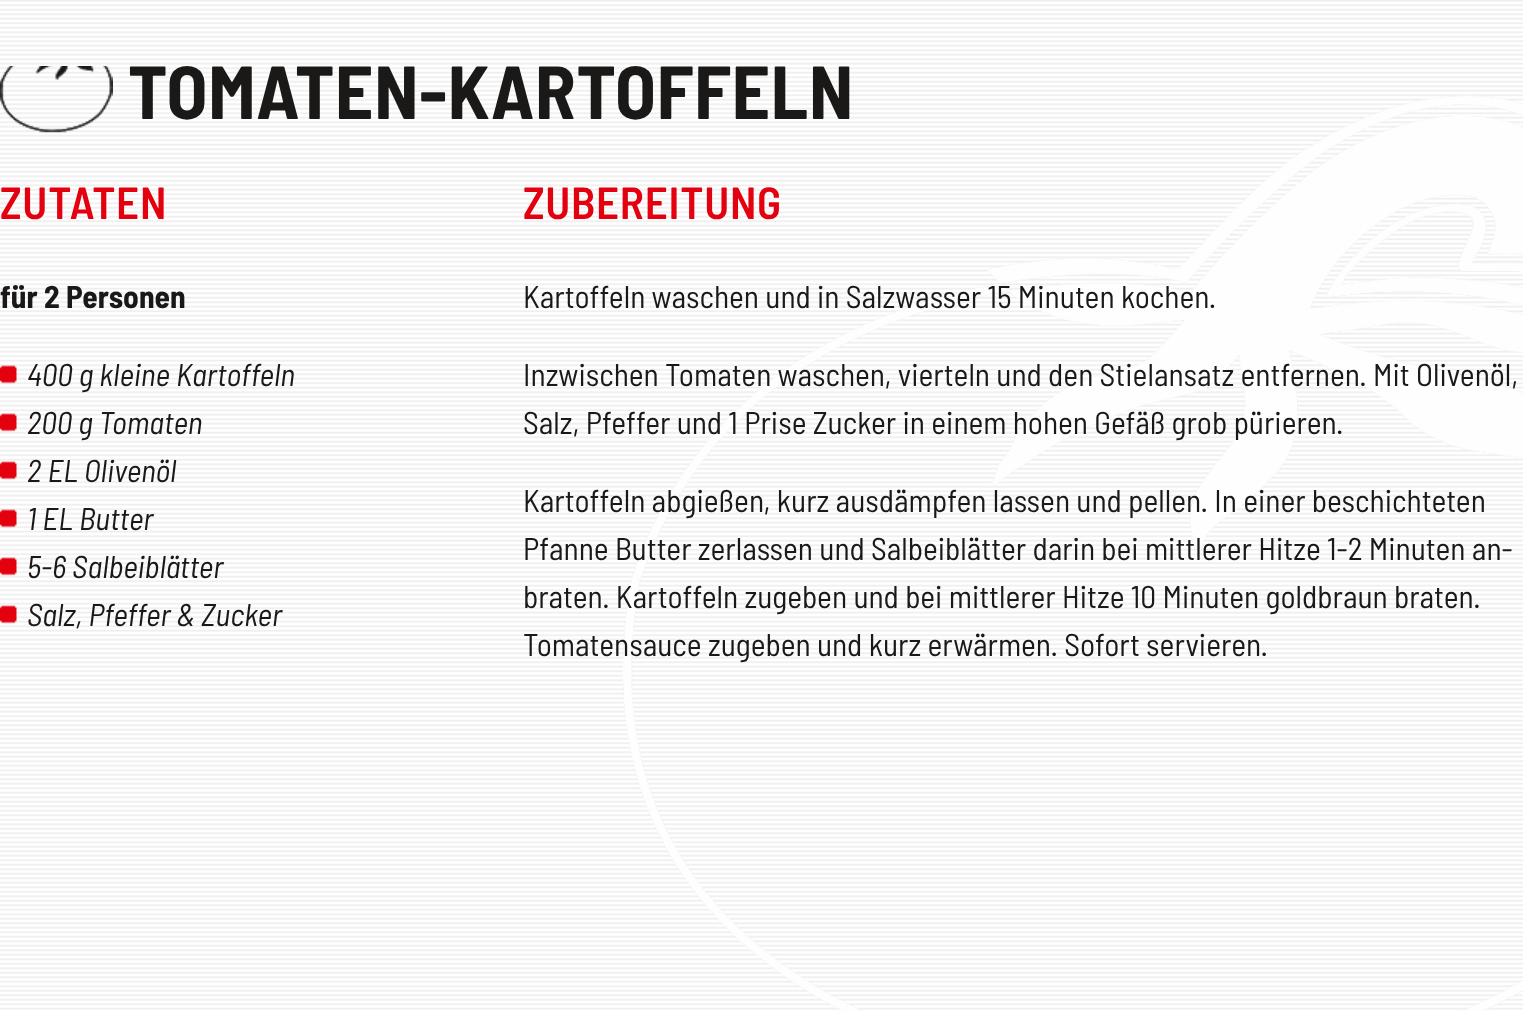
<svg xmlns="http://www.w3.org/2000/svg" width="1523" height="1011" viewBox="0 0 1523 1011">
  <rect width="100%" height="100%" fill="rgb(255,255,255)"/>
  <image x="0" y="0" width="1523" height="1011" href="pic1.png"/>
  <image x="0" y="66" width="113" height="67" href="pic2.png"/>
  <text x="128" y="119" font-family="Barlow Semi Condensed" font-size="75" font-weight="bold" letter-spacing="0.75" fill="rgb(26,25,24)">TOMATEN-KARTOFFELN</text>
  <text x="0" y="219" font-family="Barlow Semi Condensed" font-size="45" font-weight="600" letter-spacing="0.75" fill="rgb(227,0,15)">ZUTATEN</text>
  <text x="0" y="308" font-family="Barlow Semi Condensed" font-size="31.5" font-weight="bold" fill="rgb(26,25,24)">für 2 Personen</text>
  <image x="0" y="365" width="17" height="19" href="pic3.png"/>
  <text x="27" y="386" font-family="Barlow Semi Condensed" font-size="31.5" font-style="italic" fill="rgb(26,25,24)">400 g kleine Kartoffeln</text>
  <image x="0" y="413" width="17" height="19" href="pic4.png"/>
  <text x="27" y="434" font-family="Barlow Semi Condensed" font-size="31.5" font-style="italic" fill="rgb(26,25,24)">200 g Tomaten</text>
  <image x="0" y="461" width="17" height="19" href="pic5.png"/>
  <text x="27" y="482" font-family="Barlow Semi Condensed" font-size="31.5" font-style="italic" fill="rgb(26,25,24)">2 EL Olivenöl</text>
  <image x="0" y="509" width="17" height="19" href="pic3.png"/>
  <text x="27" y="530" font-family="Barlow Semi Condensed" font-size="31.5" font-style="italic" fill="rgb(26,25,24)">1 EL Butter</text>
  <image x="0" y="557" width="17" height="19" href="pic6.png"/>
  <text x="27" y="578" font-family="Barlow Semi Condensed" font-size="31.5" font-style="italic" fill="rgb(26,25,24)">5-6 Salbeiblätter</text>
  <image x="0" y="605" width="17" height="19" href="pic7.png"/>
  <text x="27" y="626" font-family="Barlow Semi Condensed" font-size="31.5" font-style="italic" fill="rgb(26,25,24)">Salz, Pfeffer &amp; Zucker</text>
  <text x="523" y="219" font-family="Barlow Semi Condensed" font-size="45" font-weight="600" letter-spacing="0.75" fill="rgb(227,0,15)">ZUBEREITUNG</text>
  <g font-family="Barlow Semi Condensed" font-size="31.5" fill="rgb(26,25,24)">
    <text x="523" y="308">Kartoffeln waschen und in Salzwasser 15 Minuten kochen.</text>
    <text>
      <tspan x="523" y="386">Inzwischen Tomaten waschen, vierteln und den Stielansatz entfernen. Mit Olivenöl,</tspan>
      <tspan x="523" y="434">Salz, Pfeffer und 1 Prise Zucker in einem hohen Gefäß grob pürieren.</tspan>
    </text>
    <text>
      <tspan x="523" y="512">Kartoffeln abgießen, kurz ausdämpfen lassen und pellen. In einer beschichteten</tspan>
      <tspan x="523" y="560">Pfanne Butter zerlassen und Salbeiblätter darin bei mittlerer Hitze 1-2 Minuten an-</tspan>
      <tspan x="523" y="608">braten. Kartoffeln zugeben und bei mittlerer Hitze 10 Minuten goldbraun braten.</tspan>
      <tspan x="523" y="656">Tomatensauce zugeben und kurz erwärmen. Sofort servieren.</tspan>
    </text>
  </g>
</svg>
